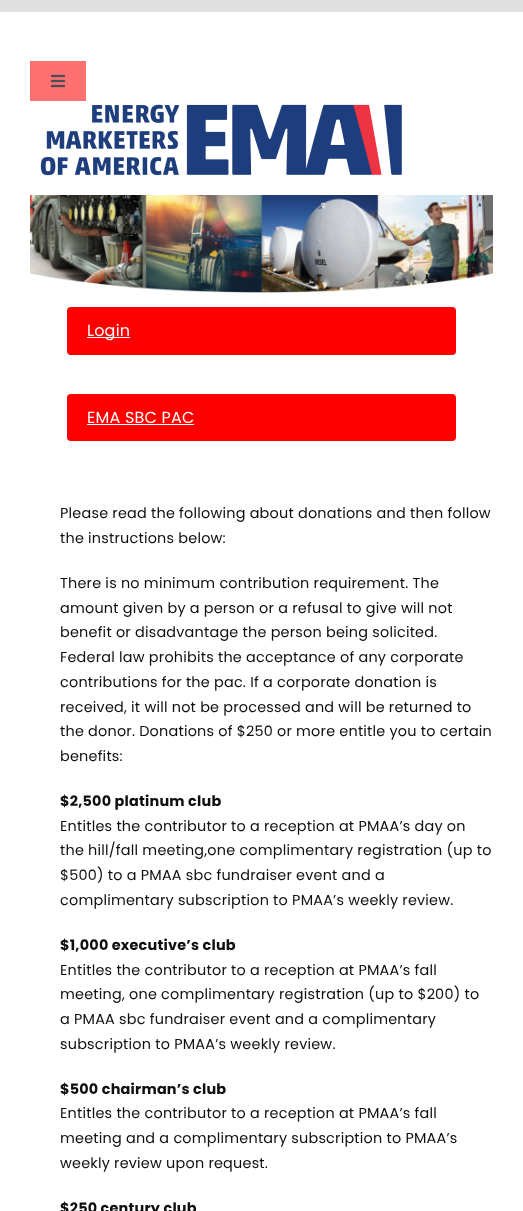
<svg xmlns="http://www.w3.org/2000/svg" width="523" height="1211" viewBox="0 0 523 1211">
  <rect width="100%" height="100%" fill="rgb(224,224,224)"/>
  <rect x="0" y="12" width="523" height="1199" fill="rgb(255,255,255)"/>
  <rect x="30" y="61" width="56" height="40" fill="rgb(255,112,112)"/>
  <image x="51" y="74" width="14" height="14" href="pic1.png"/>
  <image x="40" y="104" width="362" height="72" href="pic2.png"/>
  <image x="30" y="195" width="463" height="98" href="pic3.png"/>
  <rect x="67" y="307" width="389" height="48" rx="4" fill="rgb(255,0,0)"/>
  <rect x="87" y="337" width="43" height="1" fill="rgb(255,255,255)"/>
  <text x="87" y="336" font-family="Poppins" font-size="16" letter-spacing="0.22" fill="rgb(255,255,255)">Login</text>
  <rect x="67" y="394" width="389" height="47" rx="4" fill="rgb(255,0,0)"/>
  <text x="87" y="423" font-family="Poppins" font-size="16" letter-spacing="0.22" fill="rgb(255,255,255)">EMA SBC PAC</text>
  <rect x="87" y="424" width="107" height="1" fill="rgb(255,255,255)"/>
  <g font-family="Poppins" font-size="14.4" letter-spacing="0.22" fill="rgb(15,15,15)">
    <text>
      <tspan x="60" y="518">Please read the following about donations and then follow</tspan>
      <tspan x="60" y="543">the instructions below:</tspan>
    </text>
    <text>
      <tspan x="60" y="588">There is no minimum contribution requirement. The</tspan>
      <tspan x="60" y="613">amount given by a person or a refusal to give will not</tspan>
      <tspan x="60" y="637">benefit or disadvantage the person being solicited.</tspan>
      <tspan x="60" y="662">Federal law prohibits the acceptance of any corporate</tspan>
      <tspan x="60" y="687">contributions for the pac. If a corporate donation is</tspan>
      <tspan x="60" y="712">received, it will not be processed and will be returned to</tspan>
      <tspan x="60" y="736">the donor. Donations of $250 or more entitle you to certain</tspan>
      <tspan x="60" y="761">benefits:</tspan>
    </text>
  </g>
  <text x="60" y="806" font-family="Poppins" font-size="14.4" font-weight="bold" letter-spacing="0.22" fill="rgb(15,15,15)">$2,500 platinum club</text>
  <g font-family="Poppins" font-size="14.4" letter-spacing="0.22" fill="rgb(15,15,15)">
    <text>
      <tspan x="60" y="831">Entitles the contributor to a reception at PMAA’s day on</tspan>
      <tspan x="60" y="855">the hill/fall meeting,one complimentary registration (up to</tspan>
      <tspan x="60" y="880">$500) to a PMAA sbc fundraiser event and a</tspan>
      <tspan x="60" y="905">complimentary subscription to PMAA’s weekly review.</tspan>
    </text>
  </g>
  <text x="60" y="950" font-family="Poppins" font-size="14.4" font-weight="bold" letter-spacing="0.22" fill="rgb(15,15,15)">$1,000 executive’s club</text>
  <g font-family="Poppins" font-size="14.4" letter-spacing="0.22" fill="rgb(15,15,15)">
    <text>
      <tspan x="60" y="975">Entitles the contributor to a reception at PMAA’s fall</tspan>
      <tspan x="60" y="999">meeting, one complimentary registration (up to $200) to</tspan>
      <tspan x="60" y="1024">a PMAA sbc fundraiser event and a complimentary</tspan>
      <tspan x="60" y="1049">subscription to PMAA’s weekly review.</tspan>
    </text>
  </g>
  <text x="60" y="1094" font-family="Poppins" font-size="14.4" font-weight="bold" letter-spacing="0.22" fill="rgb(15,15,15)">$500 chairman’s club</text>
  <g font-family="Poppins" font-size="14.4" letter-spacing="0.22" fill="rgb(15,15,15)">
    <text>
      <tspan x="60" y="1118">Entitles the contributor to a reception at PMAA’s fall</tspan>
      <tspan x="60" y="1143">meeting and a complimentary subscription to PMAA’s</tspan>
      <tspan x="60" y="1168">weekly review upon request.</tspan>
    </text>
  </g>
  <text x="60" y="1213" font-family="Poppins" font-size="14.4" font-weight="bold" letter-spacing="0.22" fill="rgb(15,15,15)">$250 century club</text>
</svg>
